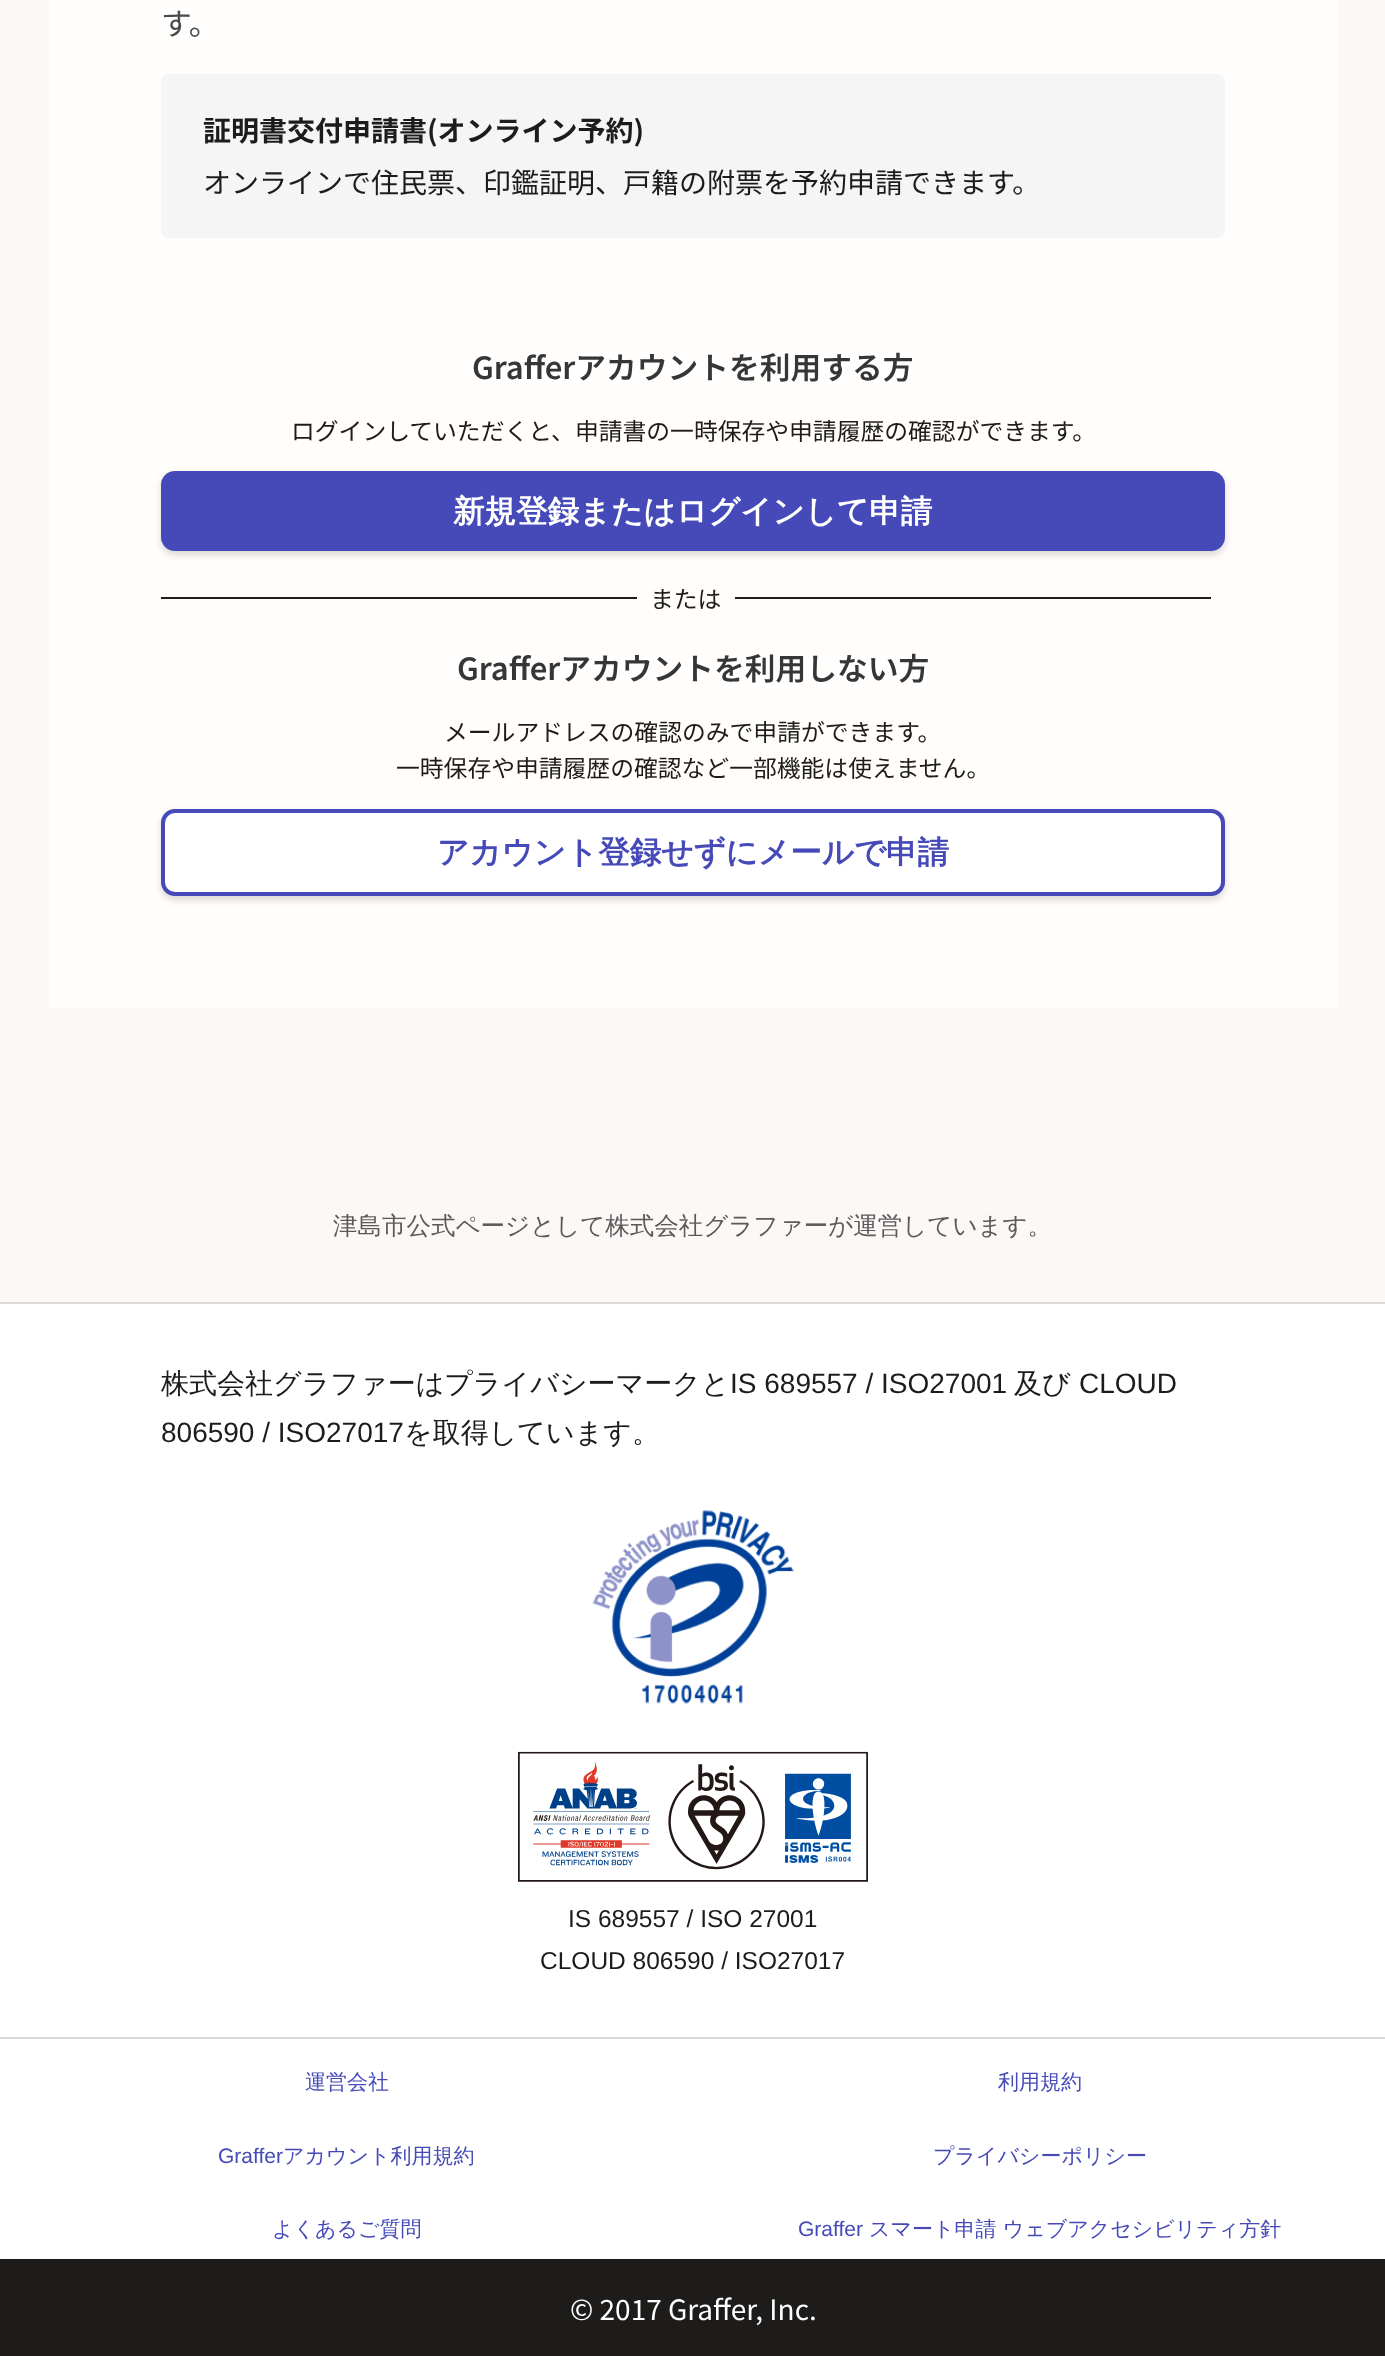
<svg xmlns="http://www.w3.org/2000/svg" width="1385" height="2356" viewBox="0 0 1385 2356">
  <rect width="100%" height="100%" fill="rgb(250,249,247)"/>
  <rect x="49" y="0" width="1288" height="1008" fill="rgb(255,254,252)"/>
  <text x="161" y="35" font-family="Noto Sans JP" font-size="30.75" fill="rgb(74,74,74)">す。</text>
  <rect x="161" y="74" width="1064" height="164" rx="7" fill="rgb(245,245,245)"/>
  <text x="203" y="141" font-family="Noto Sans JP" font-size="28" font-weight="bold" fill="rgb(29,28,26)">証明書交付申請書(オンライン予約)</text>
  <text x="203" y="193" font-family="Noto Sans JP" font-size="28" fill="rgb(29,28,26)">オンラインで住民票、印鑑証明、戸籍の附票を予約申請できます。</text>
  <text x="472" y="379" font-family="Noto Sans JP" font-size="30.75" font-weight="600" fill="rgb(54,54,54)">Grafferアカウントを利用する方</text>
  <text x="291" y="440" font-family="Noto Sans JP" font-size="23.8" fill="rgb(29,28,26)">ログインしていただくと、申請書の一時保存や申請履歴の確認ができます。</text>
  <rect x="161" y="474" width="1064" height="81" rx="14" fill="rgba(0,0,0,0.15)" filter="blur(3.5px)"/>
  <rect x="161" y="471" width="1064" height="80" rx="14" fill="rgb(69,74,184)"/>
  <text x="453" y="522" font-family="WenQuanYi Zen Hei" font-size="31.5" font-weight="bold" fill="rgb(255,255,255)">新規登録またはログインして申請</text>
  <rect x="161" y="597" width="476" height="2" fill="rgb(29,28,26)"/>
  <text x="650" y="608" font-family="Noto Sans JP" font-size="23.8" fill="rgb(29,28,26)">または</text>
  <rect x="735" y="597" width="476" height="2" fill="rgb(29,28,26)"/>
  <text x="457" y="680" font-family="Noto Sans JP" font-size="30.75" font-weight="600" fill="rgb(54,54,54)">Grafferアカウントを利用しない方</text>
  <g font-family="Noto Sans JP" font-size="23.8" fill="rgb(29,28,26)">
    <text x="444" y="741">メールアドレスの確認のみで申請ができます。</text>
    <text x="396" y="777">一時保存や申請履歴の確認など一部機能は使えません。</text>
  </g>
  <rect x="161" y="812" width="1064" height="88" rx="14" fill="rgba(0,0,0,0.15)" filter="blur(3.5px)"/>
  <rect x="163" y="811" width="1060" height="83" rx="12" fill="rgb(255,255,255)" stroke="rgb(69,74,184)" stroke-width="4"/>
  <text x="437" y="863" font-family="WenQuanYi Zen Hei" font-size="31.5" font-weight="bold" fill="rgb(69,74,184)">アカウント登録せずにメールで申請</text>
  <text x="333" y="1234" font-family="WenQuanYi Zen Hei" font-size="24.5" font-weight="500" fill="rgb(92,89,89)">津島市公式ページとして株式会社グラファーが運営しています。</text>
  <rect x="0" y="1304" width="1385" height="733" fill="rgb(255,255,255)"/>
  <rect x="0" y="1302" width="1385" height="2" fill="rgb(220,217,216)"/>
  <text x="161" y="1393" font-family="WenQuanYi Zen Hei" font-size="28" font-weight="500" fill="rgb(29,28,26)">株式会社グラファーはプライバシーマークと</text>
  <text x="730" y="1393" font-family="Liberation Sans" font-size="28" fill="rgb(29,28,26)">IS 689557 / ISO27001</text>
  <text x="1014" y="1393" font-family="WenQuanYi Zen Hei" font-size="28" font-weight="500" fill="rgb(29,28,26)">及び</text>
  <g font-family="Liberation Sans" font-size="28" fill="rgb(29,28,26)">
    <text x="1079" y="1393">CLOUD</text>
    <text x="161" y="1442">806590 / ISO27017</text>
  </g>
  <text x="404" y="1442" font-family="WenQuanYi Zen Hei" font-size="28" font-weight="500" fill="rgb(29,28,26)">を取得しています。</text>
  <image x="592" y="1510" width="202" height="194" href="pic1.png"/>
  <image x="518" y="1751" width="350" height="131" href="pic2.png"/>
  <g font-family="Liberation Sans" font-size="24.5" fill="rgb(29,28,26)">
    <text x="568" y="1927">IS 689557 / ISO 27001</text>
    <text x="540" y="1969">CLOUD 806590 / ISO27017</text>
  </g>
  <rect x="0" y="2039" width="1385" height="220" fill="rgb(255,255,255)"/>
  <rect x="0" y="2037" width="1385" height="2" fill="rgb(220,217,216)"/>
  <g font-family="WenQuanYi Zen Hei" font-size="21" font-weight="500" fill="rgb(69,74,184)">
    <text x="305" y="2089">運営会社</text>
    <text x="998" y="2089">利用規約</text>
  </g>
  <text x="218" y="2163" font-family="Liberation Sans" font-size="21" fill="rgb(69,74,184)">Graffer</text>
  <g font-family="WenQuanYi Zen Hei" font-size="21" font-weight="500" fill="rgb(69,74,184)">
    <text x="283" y="2163">アカウント利用規約</text>
    <text x="933" y="2163">プライバシーポリシー</text>
    <text x="272" y="2236">よくあるご質問</text>
  </g>
  <text x="798" y="2236" font-family="Liberation Sans" font-size="21" fill="rgb(69,74,184)">Graffer</text>
  <text x="869" y="2236" font-family="WenQuanYi Zen Hei" font-size="21" font-weight="500" fill="rgb(69,74,184)">スマート申請 ウェブアクセシビリティ方針</text>
  <rect x="0" y="2259" width="1385" height="97" fill="rgb(29,28,26)"/>
  <text x="570" y="2320" font-family="Noto Sans JP" font-size="28" fill="rgb(255,255,255)">© 2017 Graffer, Inc.</text>
</svg>
